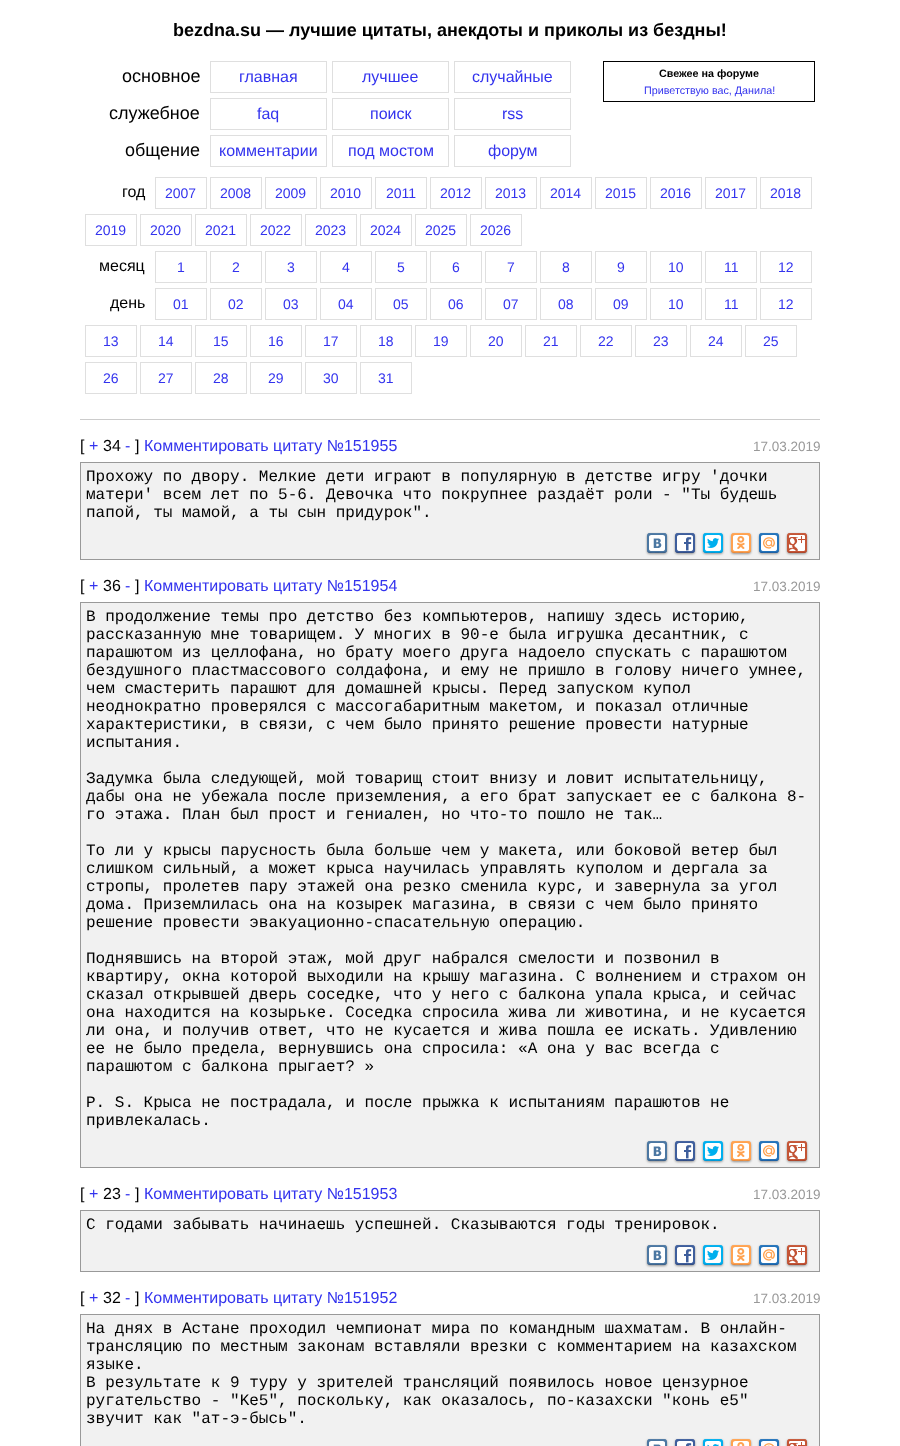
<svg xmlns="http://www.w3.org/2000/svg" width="900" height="1446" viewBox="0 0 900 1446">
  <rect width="100%" height="100%" fill="rgb(255,255,255)"/>
  <text x="173" y="36" font-family="Liberation Sans" font-size="18" font-weight="bold" fill="rgb(0,0,0)">bezdna.su — лучшие цитаты, анекдоты и приколы из бездны!</text>
  <text x="122" y="82" font-family="Liberation Sans" font-size="18" fill="rgb(0,0,0)">основное</text>
  <rect x="210.5" y="61.5" width="116" height="31" fill="none" stroke="rgb(223,223,223)"/>
  <text x="239" y="82" font-family="Liberation Sans" font-size="16" fill="rgb(51,51,238)">главная</text>
  <rect x="332.5" y="61.5" width="116" height="31" fill="none" stroke="rgb(223,223,223)"/>
  <text x="362" y="82" font-family="Liberation Sans" font-size="16" fill="rgb(51,51,238)">лучшее</text>
  <rect x="454.5" y="61.5" width="116" height="31" fill="none" stroke="rgb(223,223,223)"/>
  <text x="472" y="82" font-family="Liberation Sans" font-size="16" fill="rgb(51,51,238)">случайные</text>
  <rect x="603.5" y="61.5" width="211" height="40" fill="none" stroke="rgb(0,0,0)"/>
  <text x="659" y="77" font-family="Liberation Sans" font-size="10.75" font-weight="bold" fill="rgb(0,0,0)">Свежее на форуме</text>
  <text x="644" y="94" font-family="Liberation Sans" font-size="10.75" fill="rgb(51,51,238)">Приветствую вас, Данила!</text>
  <text x="109" y="119" font-family="Liberation Sans" font-size="18" fill="rgb(0,0,0)">служебное</text>
  <rect x="210.5" y="98.5" width="116" height="31" fill="none" stroke="rgb(223,223,223)"/>
  <text x="257" y="119" font-family="Liberation Sans" font-size="16" fill="rgb(51,51,238)">faq</text>
  <rect x="332.5" y="98.5" width="116" height="31" fill="none" stroke="rgb(223,223,223)"/>
  <text x="370" y="119" font-family="Liberation Sans" font-size="16" fill="rgb(51,51,238)">поиск</text>
  <rect x="454.5" y="98.5" width="116" height="31" fill="none" stroke="rgb(223,223,223)"/>
  <text x="502" y="119" font-family="Liberation Sans" font-size="16" fill="rgb(51,51,238)">rss</text>
  <text x="125" y="156" font-family="Liberation Sans" font-size="18" fill="rgb(0,0,0)">общение</text>
  <rect x="210.5" y="135.5" width="116" height="31" fill="none" stroke="rgb(223,223,223)"/>
  <text x="219" y="156" font-family="Liberation Sans" font-size="16" fill="rgb(51,51,238)">комментарии</text>
  <rect x="332.5" y="135.5" width="116" height="31" fill="none" stroke="rgb(223,223,223)"/>
  <text x="348" y="156" font-family="Liberation Sans" font-size="16" fill="rgb(51,51,238)">под мостом</text>
  <rect x="454.5" y="135.5" width="116" height="31" fill="none" stroke="rgb(223,223,223)"/>
  <text x="488" y="156" font-family="Liberation Sans" font-size="16" fill="rgb(51,51,238)">форум</text>
  <text x="122" y="197" font-family="Liberation Sans" font-size="16" fill="rgb(0,0,0)">год</text>
  <rect x="155.5" y="177.5" width="51" height="31" fill="none" stroke="rgb(223,223,223)"/>
  <text x="165" y="198" font-family="Liberation Sans" font-size="14" fill="rgb(51,51,238)">2007</text>
  <rect x="210.5" y="177.5" width="51" height="31" fill="none" stroke="rgb(223,223,223)"/>
  <text x="220" y="198" font-family="Liberation Sans" font-size="14" fill="rgb(51,51,238)">2008</text>
  <rect x="265.5" y="177.5" width="51" height="31" fill="none" stroke="rgb(223,223,223)"/>
  <text x="275" y="198" font-family="Liberation Sans" font-size="14" fill="rgb(51,51,238)">2009</text>
  <rect x="320.5" y="177.5" width="51" height="31" fill="none" stroke="rgb(223,223,223)"/>
  <text x="330" y="198" font-family="Liberation Sans" font-size="14" fill="rgb(51,51,238)">2010</text>
  <rect x="375.5" y="177.5" width="51" height="31" fill="none" stroke="rgb(223,223,223)"/>
  <text x="386" y="198" font-family="Liberation Sans" font-size="14" fill="rgb(51,51,238)">2011</text>
  <rect x="430.5" y="177.5" width="51" height="31" fill="none" stroke="rgb(223,223,223)"/>
  <text x="440" y="198" font-family="Liberation Sans" font-size="14" fill="rgb(51,51,238)">2012</text>
  <rect x="485.5" y="177.5" width="51" height="31" fill="none" stroke="rgb(223,223,223)"/>
  <text x="495" y="198" font-family="Liberation Sans" font-size="14" fill="rgb(51,51,238)">2013</text>
  <rect x="540.5" y="177.5" width="51" height="31" fill="none" stroke="rgb(223,223,223)"/>
  <text x="550" y="198" font-family="Liberation Sans" font-size="14" fill="rgb(51,51,238)">2014</text>
  <rect x="595.5" y="177.5" width="51" height="31" fill="none" stroke="rgb(223,223,223)"/>
  <text x="605" y="198" font-family="Liberation Sans" font-size="14" fill="rgb(51,51,238)">2015</text>
  <rect x="650.5" y="177.5" width="51" height="31" fill="none" stroke="rgb(223,223,223)"/>
  <text x="660" y="198" font-family="Liberation Sans" font-size="14" fill="rgb(51,51,238)">2016</text>
  <rect x="705.5" y="177.5" width="51" height="31" fill="none" stroke="rgb(223,223,223)"/>
  <text x="715" y="198" font-family="Liberation Sans" font-size="14" fill="rgb(51,51,238)">2017</text>
  <rect x="760.5" y="177.5" width="51" height="31" fill="none" stroke="rgb(223,223,223)"/>
  <text x="770" y="198" font-family="Liberation Sans" font-size="14" fill="rgb(51,51,238)">2018</text>
  <rect x="85.5" y="214.5" width="51" height="31" fill="none" stroke="rgb(223,223,223)"/>
  <text x="95" y="235" font-family="Liberation Sans" font-size="14" fill="rgb(51,51,238)">2019</text>
  <rect x="140.5" y="214.5" width="51" height="31" fill="none" stroke="rgb(223,223,223)"/>
  <text x="150" y="235" font-family="Liberation Sans" font-size="14" fill="rgb(51,51,238)">2020</text>
  <rect x="195.5" y="214.5" width="51" height="31" fill="none" stroke="rgb(223,223,223)"/>
  <text x="205" y="235" font-family="Liberation Sans" font-size="14" fill="rgb(51,51,238)">2021</text>
  <rect x="250.5" y="214.5" width="51" height="31" fill="none" stroke="rgb(223,223,223)"/>
  <text x="260" y="235" font-family="Liberation Sans" font-size="14" fill="rgb(51,51,238)">2022</text>
  <rect x="305.5" y="214.5" width="51" height="31" fill="none" stroke="rgb(223,223,223)"/>
  <text x="315" y="235" font-family="Liberation Sans" font-size="14" fill="rgb(51,51,238)">2023</text>
  <rect x="360.5" y="214.5" width="51" height="31" fill="none" stroke="rgb(223,223,223)"/>
  <text x="370" y="235" font-family="Liberation Sans" font-size="14" fill="rgb(51,51,238)">2024</text>
  <rect x="415.5" y="214.5" width="51" height="31" fill="none" stroke="rgb(223,223,223)"/>
  <text x="425" y="235" font-family="Liberation Sans" font-size="14" fill="rgb(51,51,238)">2025</text>
  <rect x="470.5" y="214.5" width="51" height="31" fill="none" stroke="rgb(223,223,223)"/>
  <text x="480" y="235" font-family="Liberation Sans" font-size="14" fill="rgb(51,51,238)">2026</text>
  <text x="99" y="271" font-family="Liberation Sans" font-size="16" fill="rgb(0,0,0)">месяц</text>
  <rect x="155.5" y="251.5" width="51" height="31" fill="none" stroke="rgb(223,223,223)"/>
  <text x="177" y="272" font-family="Liberation Sans" font-size="14" fill="rgb(51,51,238)">1</text>
  <rect x="210.5" y="251.5" width="51" height="31" fill="none" stroke="rgb(223,223,223)"/>
  <text x="232" y="272" font-family="Liberation Sans" font-size="14" fill="rgb(51,51,238)">2</text>
  <rect x="265.5" y="251.5" width="51" height="31" fill="none" stroke="rgb(223,223,223)"/>
  <text x="287" y="272" font-family="Liberation Sans" font-size="14" fill="rgb(51,51,238)">3</text>
  <rect x="320.5" y="251.5" width="51" height="31" fill="none" stroke="rgb(223,223,223)"/>
  <text x="342" y="272" font-family="Liberation Sans" font-size="14" fill="rgb(51,51,238)">4</text>
  <rect x="375.5" y="251.5" width="51" height="31" fill="none" stroke="rgb(223,223,223)"/>
  <text x="397" y="272" font-family="Liberation Sans" font-size="14" fill="rgb(51,51,238)">5</text>
  <rect x="430.5" y="251.5" width="51" height="31" fill="none" stroke="rgb(223,223,223)"/>
  <text x="452" y="272" font-family="Liberation Sans" font-size="14" fill="rgb(51,51,238)">6</text>
  <rect x="485.5" y="251.5" width="51" height="31" fill="none" stroke="rgb(223,223,223)"/>
  <text x="507" y="272" font-family="Liberation Sans" font-size="14" fill="rgb(51,51,238)">7</text>
  <rect x="540.5" y="251.5" width="51" height="31" fill="none" stroke="rgb(223,223,223)"/>
  <text x="562" y="272" font-family="Liberation Sans" font-size="14" fill="rgb(51,51,238)">8</text>
  <rect x="595.5" y="251.5" width="51" height="31" fill="none" stroke="rgb(223,223,223)"/>
  <text x="617" y="272" font-family="Liberation Sans" font-size="14" fill="rgb(51,51,238)">9</text>
  <rect x="650.5" y="251.5" width="51" height="31" fill="none" stroke="rgb(223,223,223)"/>
  <text x="668" y="272" font-family="Liberation Sans" font-size="14" fill="rgb(51,51,238)">10</text>
  <rect x="705.5" y="251.5" width="51" height="31" fill="none" stroke="rgb(223,223,223)"/>
  <text x="724" y="272" font-family="Liberation Sans" font-size="14" fill="rgb(51,51,238)">11</text>
  <rect x="760.5" y="251.5" width="51" height="31" fill="none" stroke="rgb(223,223,223)"/>
  <text x="778" y="272" font-family="Liberation Sans" font-size="14" fill="rgb(51,51,238)">12</text>
  <text x="110" y="308" font-family="Liberation Sans" font-size="16" fill="rgb(0,0,0)">день</text>
  <rect x="155.5" y="288.5" width="51" height="31" fill="none" stroke="rgb(223,223,223)"/>
  <text x="173" y="309" font-family="Liberation Sans" font-size="14" fill="rgb(51,51,238)">01</text>
  <rect x="210.5" y="288.5" width="51" height="31" fill="none" stroke="rgb(223,223,223)"/>
  <text x="228" y="309" font-family="Liberation Sans" font-size="14" fill="rgb(51,51,238)">02</text>
  <rect x="265.5" y="288.5" width="51" height="31" fill="none" stroke="rgb(223,223,223)"/>
  <text x="283" y="309" font-family="Liberation Sans" font-size="14" fill="rgb(51,51,238)">03</text>
  <rect x="320.5" y="288.5" width="51" height="31" fill="none" stroke="rgb(223,223,223)"/>
  <text x="338" y="309" font-family="Liberation Sans" font-size="14" fill="rgb(51,51,238)">04</text>
  <rect x="375.5" y="288.5" width="51" height="31" fill="none" stroke="rgb(223,223,223)"/>
  <text x="393" y="309" font-family="Liberation Sans" font-size="14" fill="rgb(51,51,238)">05</text>
  <rect x="430.5" y="288.5" width="51" height="31" fill="none" stroke="rgb(223,223,223)"/>
  <text x="448" y="309" font-family="Liberation Sans" font-size="14" fill="rgb(51,51,238)">06</text>
  <rect x="485.5" y="288.5" width="51" height="31" fill="none" stroke="rgb(223,223,223)"/>
  <text x="503" y="309" font-family="Liberation Sans" font-size="14" fill="rgb(51,51,238)">07</text>
  <rect x="540.5" y="288.5" width="51" height="31" fill="none" stroke="rgb(223,223,223)"/>
  <text x="558" y="309" font-family="Liberation Sans" font-size="14" fill="rgb(51,51,238)">08</text>
  <rect x="595.5" y="288.5" width="51" height="31" fill="none" stroke="rgb(223,223,223)"/>
  <text x="613" y="309" font-family="Liberation Sans" font-size="14" fill="rgb(51,51,238)">09</text>
  <rect x="650.5" y="288.5" width="51" height="31" fill="none" stroke="rgb(223,223,223)"/>
  <text x="668" y="309" font-family="Liberation Sans" font-size="14" fill="rgb(51,51,238)">10</text>
  <rect x="705.5" y="288.5" width="51" height="31" fill="none" stroke="rgb(223,223,223)"/>
  <text x="724" y="309" font-family="Liberation Sans" font-size="14" fill="rgb(51,51,238)">11</text>
  <rect x="760.5" y="288.5" width="51" height="31" fill="none" stroke="rgb(223,223,223)"/>
  <text x="778" y="309" font-family="Liberation Sans" font-size="14" fill="rgb(51,51,238)">12</text>
  <rect x="85.5" y="325.5" width="51" height="31" fill="none" stroke="rgb(223,223,223)"/>
  <text x="103" y="346" font-family="Liberation Sans" font-size="14" fill="rgb(51,51,238)">13</text>
  <rect x="140.5" y="325.5" width="51" height="31" fill="none" stroke="rgb(223,223,223)"/>
  <text x="158" y="346" font-family="Liberation Sans" font-size="14" fill="rgb(51,51,238)">14</text>
  <rect x="195.5" y="325.5" width="51" height="31" fill="none" stroke="rgb(223,223,223)"/>
  <text x="213" y="346" font-family="Liberation Sans" font-size="14" fill="rgb(51,51,238)">15</text>
  <rect x="250.5" y="325.5" width="51" height="31" fill="none" stroke="rgb(223,223,223)"/>
  <text x="268" y="346" font-family="Liberation Sans" font-size="14" fill="rgb(51,51,238)">16</text>
  <rect x="305.5" y="325.5" width="51" height="31" fill="none" stroke="rgb(223,223,223)"/>
  <text x="323" y="346" font-family="Liberation Sans" font-size="14" fill="rgb(51,51,238)">17</text>
  <rect x="360.5" y="325.5" width="51" height="31" fill="none" stroke="rgb(223,223,223)"/>
  <text x="378" y="346" font-family="Liberation Sans" font-size="14" fill="rgb(51,51,238)">18</text>
  <rect x="415.5" y="325.5" width="51" height="31" fill="none" stroke="rgb(223,223,223)"/>
  <text x="433" y="346" font-family="Liberation Sans" font-size="14" fill="rgb(51,51,238)">19</text>
  <rect x="470.5" y="325.5" width="51" height="31" fill="none" stroke="rgb(223,223,223)"/>
  <text x="488" y="346" font-family="Liberation Sans" font-size="14" fill="rgb(51,51,238)">20</text>
  <rect x="525.5" y="325.5" width="51" height="31" fill="none" stroke="rgb(223,223,223)"/>
  <text x="543" y="346" font-family="Liberation Sans" font-size="14" fill="rgb(51,51,238)">21</text>
  <rect x="580.5" y="325.5" width="51" height="31" fill="none" stroke="rgb(223,223,223)"/>
  <text x="598" y="346" font-family="Liberation Sans" font-size="14" fill="rgb(51,51,238)">22</text>
  <rect x="635.5" y="325.5" width="51" height="31" fill="none" stroke="rgb(223,223,223)"/>
  <text x="653" y="346" font-family="Liberation Sans" font-size="14" fill="rgb(51,51,238)">23</text>
  <rect x="690.5" y="325.5" width="51" height="31" fill="none" stroke="rgb(223,223,223)"/>
  <text x="708" y="346" font-family="Liberation Sans" font-size="14" fill="rgb(51,51,238)">24</text>
  <rect x="745.5" y="325.5" width="51" height="31" fill="none" stroke="rgb(223,223,223)"/>
  <text x="763" y="346" font-family="Liberation Sans" font-size="14" fill="rgb(51,51,238)">25</text>
  <rect x="85.5" y="362.5" width="51" height="31" fill="none" stroke="rgb(223,223,223)"/>
  <text x="103" y="383" font-family="Liberation Sans" font-size="14" fill="rgb(51,51,238)">26</text>
  <rect x="140.5" y="362.5" width="51" height="31" fill="none" stroke="rgb(223,223,223)"/>
  <text x="158" y="383" font-family="Liberation Sans" font-size="14" fill="rgb(51,51,238)">27</text>
  <rect x="195.5" y="362.5" width="51" height="31" fill="none" stroke="rgb(223,223,223)"/>
  <text x="213" y="383" font-family="Liberation Sans" font-size="14" fill="rgb(51,51,238)">28</text>
  <rect x="250.5" y="362.5" width="51" height="31" fill="none" stroke="rgb(223,223,223)"/>
  <text x="268" y="383" font-family="Liberation Sans" font-size="14" fill="rgb(51,51,238)">29</text>
  <rect x="305.5" y="362.5" width="51" height="31" fill="none" stroke="rgb(223,223,223)"/>
  <text x="323" y="383" font-family="Liberation Sans" font-size="14" fill="rgb(51,51,238)">30</text>
  <rect x="360.5" y="362.5" width="51" height="31" fill="none" stroke="rgb(223,223,223)"/>
  <text x="378" y="383" font-family="Liberation Sans" font-size="14" fill="rgb(51,51,238)">31</text>
  <rect x="80" y="419" width="740" height="1" fill="rgb(204,204,204)"/>
  <text x="80" y="451" font-family="Liberation Sans" font-size="16" fill="rgb(0,0,0)">[</text>
  <text x="89" y="451" font-family="Liberation Sans" font-size="16" fill="rgb(51,51,238)">+</text>
  <text x="103" y="451" font-family="Liberation Sans" font-size="16" fill="rgb(0,0,0)">34</text>
  <text x="125" y="451" font-family="Liberation Sans" font-size="16" fill="rgb(51,51,238)">-</text>
  <text x="135" y="451" font-family="Liberation Sans" font-size="16" fill="rgb(0,0,0)">]</text>
  <text x="144" y="451" font-family="Liberation Sans" font-size="16" fill="rgb(51,51,238)">Комментировать цитату №151955</text>
  <text x="753" y="451" font-family="Liberation Sans" font-size="13.5" fill="rgb(153,153,153)">17.03.2019</text>
  <rect x="81" y="463" width="738" height="96" fill="rgb(241,241,241)"/>
  <rect x="80" y="462" width="740" height="1" fill="rgb(153,153,153)"/>
  <rect x="819" y="462" width="1" height="98" fill="rgb(153,153,153)"/>
  <rect x="80" y="462" width="1" height="65" fill="rgb(153,153,153)"/>
  <g font-family="Liberation Mono" font-size="16" fill="rgb(0,0,0)">
    <text>
      <tspan x="86" y="481">Прохожу по двору. Мелкие дети играют в популярную в детстве игру 'дочки</tspan>
      <tspan x="86" y="499">матери' всем лет по 5-6. Девочка что покрупнее раздаёт роли - "Ты будешь</tspan>
      <tspan x="86" y="517">папой, ты мамой, а ты сын придурок".</tspan>
    </text>
  </g>
  <rect x="80" y="559" width="740" height="1" fill="rgb(153,153,153)"/>
  <rect x="80" y="527" width="1" height="33" fill="rgb(153,153,153)"/>
  <rect x="647" y="534" width="20" height="20" rx="3" fill="rgb(144,144,144)" filter="blur(1px)"/>
  <rect x="647" y="533" width="20" height="20" rx="3" fill="rgb(75,119,162)"/>
  <path d="M650 533C648.5 533 647 534.5 647 536C647 533 656 534 657 534C658 534 667 533 667 536C667 534.5 665.5 533 664 533Z" fill="rgb(87,128,168)"/>
  <path d="M664 553C665.5 553 667 551.5 667 550C667 553 658 552 657 552C656 552 647 553 647 550C647 551.5 648.5 553 650 553Z" fill="rgb(61,97,137)"/>
  <image x="649" y="535" width="16" height="16" href="pic1.png"/>
  <rect x="675" y="534" width="20" height="20" rx="3" fill="rgb(144,144,144)" filter="blur(1px)"/>
  <rect x="675" y="533" width="20" height="20" rx="3" fill="rgb(62,94,156)"/>
  <path d="M678 533C676.5 533 675 534.5 675 536C675 533 684 534 685 534C686 534 695 533 695 536C695 534.5 693.5 533 692 533Z" fill="rgb(74,104,163)"/>
  <path d="M692 553C693.5 553 695 551.5 695 550C695 553 686 552 685 552C684 552 675 553 675 550C675 551.5 676.5 553 678 553Z" fill="rgb(51,77,131)"/>
  <image x="677" y="535" width="16" height="16" href="pic2.png"/>
  <rect x="703" y="534" width="20" height="20" rx="3" fill="rgb(144,144,144)" filter="blur(1px)"/>
  <rect x="703" y="533" width="20" height="20" rx="3" fill="rgb(0,175,238)"/>
  <path d="M706 533C704.5 533 703 534.5 703 536C703 533 712 534 713 534C714 534 723 533 723 536C723 534.5 721.5 533 720 533Z" fill="rgb(15,181,239)"/>
  <path d="M720 553C721.5 553 723 551.5 723 550C723 553 714 552 713 552C712 552 703 553 703 550C703 551.5 704.5 553 706 553Z" fill="rgb(0,150,211)"/>
  <image x="705" y="535" width="16" height="16" href="pic3.png"/>
  <rect x="731" y="534" width="20" height="20" rx="3" fill="rgb(144,144,144)" filter="blur(1px)"/>
  <rect x="731" y="533" width="20" height="20" rx="3" fill="rgb(255,162,80)"/>
  <path d="M734 533C732.5 533 731 534.5 731 536C731 533 740 534 741 534C742 534 751 533 751 536C751 534.5 749.5 533 748 533Z" fill="rgb(255,169,91)"/>
  <path d="M748 553C749.5 553 751 551.5 751 550C751 553 742 552 741 552C740 552 731 553 731 550C731 551.5 732.5 553 734 553Z" fill="rgb(228,138,65)"/>
  <image x="733" y="535" width="16" height="16" href="pic4.png"/>
  <rect x="759" y="534" width="20" height="20" rx="3" fill="rgb(144,144,144)" filter="blur(1px)"/>
  <rect x="759" y="533" width="20" height="20" rx="3" fill="rgb(35,115,186)"/>
  <path d="M762 533C760.5 533 759 534.5 759 536C759 533 768 534 769 534C770 534 779 533 779 536C779 534.5 777.5 533 776 533Z" fill="rgb(49,124,191)"/>
  <path d="M776 553C777.5 553 779 551.5 779 550C779 553 770 552 769 552C768 552 759 553 759 550C759 551.5 760.5 553 762 553Z" fill="rgb(29,94,161)"/>
  <image x="761" y="535" width="16" height="16" href="pic5.png"/>
  <rect x="787" y="534" width="20" height="20" rx="3" fill="rgb(144,144,144)" filter="blur(1px)"/>
  <rect x="787" y="533" width="20" height="20" rx="3" fill="rgb(196,85,54)"/>
  <path d="M790 533C788.5 533 787 534.5 787 536C787 533 796 534 797 534C798 534 807 533 807 536C807 534.5 805.5 533 804 533Z" fill="rgb(200,96,67)"/>
  <path d="M804 553C805.5 553 807 551.5 807 550C807 553 798 552 797 552C796 552 787 553 787 550C787 551.5 788.5 553 790 553Z" fill="rgb(171,70,45)"/>
  <image x="789" y="535" width="16" height="16" href="pic6.png"/>
  <text x="80" y="591" font-family="Liberation Sans" font-size="16" fill="rgb(0,0,0)">[</text>
  <text x="89" y="591" font-family="Liberation Sans" font-size="16" fill="rgb(51,51,238)">+</text>
  <text x="103" y="591" font-family="Liberation Sans" font-size="16" fill="rgb(0,0,0)">36</text>
  <text x="125" y="591" font-family="Liberation Sans" font-size="16" fill="rgb(51,51,238)">-</text>
  <text x="135" y="591" font-family="Liberation Sans" font-size="16" fill="rgb(0,0,0)">]</text>
  <text x="144" y="591" font-family="Liberation Sans" font-size="16" fill="rgb(51,51,238)">Комментировать цитату №151954</text>
  <text x="753" y="591" font-family="Liberation Sans" font-size="13.5" fill="rgb(153,153,153)">17.03.2019</text>
  <rect x="81" y="603" width="738" height="564" fill="rgb(241,241,241)"/>
  <rect x="80" y="602" width="740" height="1" fill="rgb(153,153,153)"/>
  <rect x="819" y="602" width="1" height="566" fill="rgb(153,153,153)"/>
  <rect x="80" y="602" width="1" height="533" fill="rgb(153,153,153)"/>
  <g font-family="Liberation Mono" font-size="16" fill="rgb(0,0,0)">
    <text>
      <tspan x="86" y="621">В продолжение темы про детство без компьютеров, напишу здесь историю,</tspan>
      <tspan x="86" y="639">рассказанную мне товарищем. У многих в 90-е была игрушка десантник, с</tspan>
      <tspan x="86" y="657">парашютом из целлофана, но брату моего друга надоело спускать с парашютом</tspan>
      <tspan x="86" y="675">бездушного пластмассового солдафона, и ему не пришло в голову ничего умнее,</tspan>
      <tspan x="86" y="693">чем смастерить парашют для домашней крысы. Перед запуском купол</tspan>
      <tspan x="86" y="711">неоднократно проверялся с массогабаритным макетом, и показал отличные</tspan>
      <tspan x="86" y="729">характеристики, в связи, с чем было принято решение провести натурные</tspan>
      <tspan x="86" y="747">испытания.</tspan>
    </text>
    <text>
      <tspan x="86" y="783">Задумка была следующей, мой товарищ стоит внизу и ловит испытательницу,</tspan>
      <tspan x="86" y="801">дабы она не убежала после приземления, а его брат запускает ее с балкона 8-</tspan>
      <tspan x="86" y="819">го этажа. План был прост и гениален, но что-то пошло не так…</tspan>
    </text>
    <text>
      <tspan x="86" y="855">То ли у крысы парусность была больше чем у макета, или боковой ветер был</tspan>
      <tspan x="86" y="873">слишком сильный, а может крыса научилась управлять куполом и дергала за</tspan>
      <tspan x="86" y="891">стропы, пролетев пару этажей она резко сменила курс, и завернула за угол</tspan>
      <tspan x="86" y="909">дома. Приземлилась она на козырек магазина, в связи с чем было принято</tspan>
      <tspan x="86" y="927">решение провести эвакуационно-спасательную операцию.</tspan>
    </text>
    <text>
      <tspan x="86" y="963">Поднявшись на второй этаж, мой друг набрался смелости и позвонил в</tspan>
      <tspan x="86" y="981">квартиру, окна которой выходили на крышу магазина. С волнением и страхом он</tspan>
      <tspan x="86" y="999">сказал открывшей дверь соседке, что у него с балкона упала крыса, и сейчас</tspan>
      <tspan x="86" y="1017">она находится на козырьке. Соседка спросила жива ли животина, и не кусается</tspan>
      <tspan x="86" y="1035">ли она, и получив ответ, что не кусается и жива пошла ее искать. Удивлению</tspan>
      <tspan x="86" y="1053">ее не было предела, вернувшись она спросила: «А она у вас всегда с</tspan>
      <tspan x="86" y="1071">парашютом с балкона прыгает? »</tspan>
    </text>
    <text>
      <tspan x="86" y="1107">P. S. Крыса не пострадала, и после прыжка к испытаниям парашютов не</tspan>
      <tspan x="86" y="1125">привлекалась.</tspan>
    </text>
  </g>
  <rect x="80" y="1167" width="740" height="1" fill="rgb(153,153,153)"/>
  <rect x="80" y="1135" width="1" height="33" fill="rgb(153,153,153)"/>
  <rect x="647" y="1142" width="20" height="20" rx="3" fill="rgb(144,144,144)" filter="blur(1px)"/>
  <rect x="647" y="1141" width="20" height="20" rx="3" fill="rgb(75,119,162)"/>
  <path d="M650 1141C648.5 1141 647 1142.5 647 1144C647 1141 656 1142 657 1142C658 1142 667 1141 667 1144C667 1142.5 665.5 1141 664 1141Z" fill="rgb(87,128,168)"/>
  <path d="M664 1161C665.5 1161 667 1159.5 667 1158C667 1161 658 1160 657 1160C656 1160 647 1161 647 1158C647 1159.5 648.5 1161 650 1161Z" fill="rgb(61,97,137)"/>
  <image x="649" y="1143" width="16" height="16" href="pic1.png"/>
  <rect x="675" y="1142" width="20" height="20" rx="3" fill="rgb(144,144,144)" filter="blur(1px)"/>
  <rect x="675" y="1141" width="20" height="20" rx="3" fill="rgb(62,94,156)"/>
  <path d="M678 1141C676.5 1141 675 1142.5 675 1144C675 1141 684 1142 685 1142C686 1142 695 1141 695 1144C695 1142.5 693.5 1141 692 1141Z" fill="rgb(74,104,163)"/>
  <path d="M692 1161C693.5 1161 695 1159.5 695 1158C695 1161 686 1160 685 1160C684 1160 675 1161 675 1158C675 1159.5 676.5 1161 678 1161Z" fill="rgb(51,77,131)"/>
  <image x="677" y="1143" width="16" height="16" href="pic2.png"/>
  <rect x="703" y="1142" width="20" height="20" rx="3" fill="rgb(144,144,144)" filter="blur(1px)"/>
  <rect x="703" y="1141" width="20" height="20" rx="3" fill="rgb(0,175,238)"/>
  <path d="M706 1141C704.5 1141 703 1142.5 703 1144C703 1141 712 1142 713 1142C714 1142 723 1141 723 1144C723 1142.5 721.5 1141 720 1141Z" fill="rgb(15,181,239)"/>
  <path d="M720 1161C721.5 1161 723 1159.5 723 1158C723 1161 714 1160 713 1160C712 1160 703 1161 703 1158C703 1159.5 704.5 1161 706 1161Z" fill="rgb(0,150,211)"/>
  <image x="705" y="1143" width="16" height="16" href="pic3.png"/>
  <rect x="731" y="1142" width="20" height="20" rx="3" fill="rgb(144,144,144)" filter="blur(1px)"/>
  <rect x="731" y="1141" width="20" height="20" rx="3" fill="rgb(255,162,80)"/>
  <path d="M734 1141C732.5 1141 731 1142.5 731 1144C731 1141 740 1142 741 1142C742 1142 751 1141 751 1144C751 1142.5 749.5 1141 748 1141Z" fill="rgb(255,169,91)"/>
  <path d="M748 1161C749.5 1161 751 1159.5 751 1158C751 1161 742 1160 741 1160C740 1160 731 1161 731 1158C731 1159.5 732.5 1161 734 1161Z" fill="rgb(228,138,65)"/>
  <image x="733" y="1143" width="16" height="16" href="pic4.png"/>
  <rect x="759" y="1142" width="20" height="20" rx="3" fill="rgb(144,144,144)" filter="blur(1px)"/>
  <rect x="759" y="1141" width="20" height="20" rx="3" fill="rgb(35,115,186)"/>
  <path d="M762 1141C760.5 1141 759 1142.5 759 1144C759 1141 768 1142 769 1142C770 1142 779 1141 779 1144C779 1142.5 777.5 1141 776 1141Z" fill="rgb(49,124,191)"/>
  <path d="M776 1161C777.5 1161 779 1159.5 779 1158C779 1161 770 1160 769 1160C768 1160 759 1161 759 1158C759 1159.5 760.5 1161 762 1161Z" fill="rgb(29,94,161)"/>
  <image x="761" y="1143" width="16" height="16" href="pic5.png"/>
  <rect x="787" y="1142" width="20" height="20" rx="3" fill="rgb(144,144,144)" filter="blur(1px)"/>
  <rect x="787" y="1141" width="20" height="20" rx="3" fill="rgb(196,85,54)"/>
  <path d="M790 1141C788.5 1141 787 1142.5 787 1144C787 1141 796 1142 797 1142C798 1142 807 1141 807 1144C807 1142.5 805.5 1141 804 1141Z" fill="rgb(200,96,67)"/>
  <path d="M804 1161C805.5 1161 807 1159.5 807 1158C807 1161 798 1160 797 1160C796 1160 787 1161 787 1158C787 1159.5 788.5 1161 790 1161Z" fill="rgb(171,70,45)"/>
  <image x="789" y="1143" width="16" height="16" href="pic6.png"/>
  <text x="80" y="1199" font-family="Liberation Sans" font-size="16" fill="rgb(0,0,0)">[</text>
  <text x="89" y="1199" font-family="Liberation Sans" font-size="16" fill="rgb(51,51,238)">+</text>
  <text x="103" y="1199" font-family="Liberation Sans" font-size="16" fill="rgb(0,0,0)">23</text>
  <text x="125" y="1199" font-family="Liberation Sans" font-size="16" fill="rgb(51,51,238)">-</text>
  <text x="135" y="1199" font-family="Liberation Sans" font-size="16" fill="rgb(0,0,0)">]</text>
  <text x="144" y="1199" font-family="Liberation Sans" font-size="16" fill="rgb(51,51,238)">Комментировать цитату №151953</text>
  <text x="753" y="1199" font-family="Liberation Sans" font-size="13.5" fill="rgb(153,153,153)">17.03.2019</text>
  <rect x="81" y="1211" width="738" height="60" fill="rgb(241,241,241)"/>
  <rect x="80" y="1210" width="740" height="1" fill="rgb(153,153,153)"/>
  <rect x="819" y="1210" width="1" height="62" fill="rgb(153,153,153)"/>
  <rect x="80" y="1210" width="1" height="29" fill="rgb(153,153,153)"/>
  <text x="86" y="1229" font-family="Liberation Mono" font-size="16" fill="rgb(0,0,0)">С годами забывать начинаешь успешней. Сказываются годы тренировок.</text>
  <rect x="80" y="1271" width="740" height="1" fill="rgb(153,153,153)"/>
  <rect x="80" y="1239" width="1" height="33" fill="rgb(153,153,153)"/>
  <rect x="647" y="1246" width="20" height="20" rx="3" fill="rgb(144,144,144)" filter="blur(1px)"/>
  <rect x="647" y="1245" width="20" height="20" rx="3" fill="rgb(75,119,162)"/>
  <path d="M650 1245C648.5 1245 647 1246.5 647 1248C647 1245 656 1246 657 1246C658 1246 667 1245 667 1248C667 1246.5 665.5 1245 664 1245Z" fill="rgb(87,128,168)"/>
  <path d="M664 1265C665.5 1265 667 1263.5 667 1262C667 1265 658 1264 657 1264C656 1264 647 1265 647 1262C647 1263.5 648.5 1265 650 1265Z" fill="rgb(61,97,137)"/>
  <image x="649" y="1247" width="16" height="16" href="pic1.png"/>
  <rect x="675" y="1246" width="20" height="20" rx="3" fill="rgb(144,144,144)" filter="blur(1px)"/>
  <rect x="675" y="1245" width="20" height="20" rx="3" fill="rgb(62,94,156)"/>
  <path d="M678 1245C676.5 1245 675 1246.5 675 1248C675 1245 684 1246 685 1246C686 1246 695 1245 695 1248C695 1246.5 693.5 1245 692 1245Z" fill="rgb(74,104,163)"/>
  <path d="M692 1265C693.5 1265 695 1263.5 695 1262C695 1265 686 1264 685 1264C684 1264 675 1265 675 1262C675 1263.5 676.5 1265 678 1265Z" fill="rgb(51,77,131)"/>
  <image x="677" y="1247" width="16" height="16" href="pic2.png"/>
  <rect x="703" y="1246" width="20" height="20" rx="3" fill="rgb(144,144,144)" filter="blur(1px)"/>
  <rect x="703" y="1245" width="20" height="20" rx="3" fill="rgb(0,175,238)"/>
  <path d="M706 1245C704.5 1245 703 1246.5 703 1248C703 1245 712 1246 713 1246C714 1246 723 1245 723 1248C723 1246.5 721.5 1245 720 1245Z" fill="rgb(15,181,239)"/>
  <path d="M720 1265C721.5 1265 723 1263.5 723 1262C723 1265 714 1264 713 1264C712 1264 703 1265 703 1262C703 1263.5 704.5 1265 706 1265Z" fill="rgb(0,150,211)"/>
  <image x="705" y="1247" width="16" height="16" href="pic3.png"/>
  <rect x="731" y="1246" width="20" height="20" rx="3" fill="rgb(144,144,144)" filter="blur(1px)"/>
  <rect x="731" y="1245" width="20" height="20" rx="3" fill="rgb(255,162,80)"/>
  <path d="M734 1245C732.5 1245 731 1246.5 731 1248C731 1245 740 1246 741 1246C742 1246 751 1245 751 1248C751 1246.5 749.5 1245 748 1245Z" fill="rgb(255,169,91)"/>
  <path d="M748 1265C749.5 1265 751 1263.5 751 1262C751 1265 742 1264 741 1264C740 1264 731 1265 731 1262C731 1263.5 732.5 1265 734 1265Z" fill="rgb(228,138,65)"/>
  <image x="733" y="1247" width="16" height="16" href="pic4.png"/>
  <rect x="759" y="1246" width="20" height="20" rx="3" fill="rgb(144,144,144)" filter="blur(1px)"/>
  <rect x="759" y="1245" width="20" height="20" rx="3" fill="rgb(35,115,186)"/>
  <path d="M762 1245C760.5 1245 759 1246.5 759 1248C759 1245 768 1246 769 1246C770 1246 779 1245 779 1248C779 1246.5 777.5 1245 776 1245Z" fill="rgb(49,124,191)"/>
  <path d="M776 1265C777.5 1265 779 1263.5 779 1262C779 1265 770 1264 769 1264C768 1264 759 1265 759 1262C759 1263.5 760.5 1265 762 1265Z" fill="rgb(29,94,161)"/>
  <image x="761" y="1247" width="16" height="16" href="pic5.png"/>
  <rect x="787" y="1246" width="20" height="20" rx="3" fill="rgb(144,144,144)" filter="blur(1px)"/>
  <rect x="787" y="1245" width="20" height="20" rx="3" fill="rgb(196,85,54)"/>
  <path d="M790 1245C788.5 1245 787 1246.5 787 1248C787 1245 796 1246 797 1246C798 1246 807 1245 807 1248C807 1246.5 805.5 1245 804 1245Z" fill="rgb(200,96,67)"/>
  <path d="M804 1265C805.5 1265 807 1263.5 807 1262C807 1265 798 1264 797 1264C796 1264 787 1265 787 1262C787 1263.5 788.5 1265 790 1265Z" fill="rgb(171,70,45)"/>
  <image x="789" y="1247" width="16" height="16" href="pic6.png"/>
  <text x="80" y="1303" font-family="Liberation Sans" font-size="16" fill="rgb(0,0,0)">[</text>
  <text x="89" y="1303" font-family="Liberation Sans" font-size="16" fill="rgb(51,51,238)">+</text>
  <text x="103" y="1303" font-family="Liberation Sans" font-size="16" fill="rgb(0,0,0)">32</text>
  <text x="125" y="1303" font-family="Liberation Sans" font-size="16" fill="rgb(51,51,238)">-</text>
  <text x="135" y="1303" font-family="Liberation Sans" font-size="16" fill="rgb(0,0,0)">]</text>
  <text x="144" y="1303" font-family="Liberation Sans" font-size="16" fill="rgb(51,51,238)">Комментировать цитату №151952</text>
  <text x="753" y="1303" font-family="Liberation Sans" font-size="13.5" fill="rgb(153,153,153)">17.03.2019</text>
  <rect x="81" y="1315" width="738" height="131" fill="rgb(241,241,241)"/>
  <rect x="80" y="1314" width="740" height="1" fill="rgb(153,153,153)"/>
  <rect x="819" y="1314" width="1" height="132" fill="rgb(153,153,153)"/>
  <rect x="80" y="1314" width="1" height="132" fill="rgb(153,153,153)"/>
  <g font-family="Liberation Mono" font-size="16" fill="rgb(0,0,0)">
    <text>
      <tspan x="86" y="1333">На днях в Астане проходил чемпионат мира по командным шахматам. В онлайн-</tspan>
      <tspan x="86" y="1351">трансляцию по местным законам вставляли врезки с комментарием на казахском</tspan>
      <tspan x="86" y="1369">языке.</tspan>
      <tspan x="86" y="1387">В результате к 9 туру у зрителей трансляций появилось новое цензурное</tspan>
      <tspan x="86" y="1405">ругательство - "Ke5", поскольку, как оказалось, по-казахски "конь е5"</tspan>
      <tspan x="86" y="1423">звучит как "ат-э-бысь".</tspan>
    </text>
  </g>
  <rect x="647" y="1440" width="20" height="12" rx="3" fill="rgb(144,144,144)" filter="blur(1px)"/>
  <rect x="647" y="1439" width="20" height="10" rx="3" fill="rgb(75,119,162)"/>
  <path d="M650 1439C648.5 1439 647 1440.5 647 1442C647 1439 656 1440 657 1440C658 1440 667 1439 667 1442C667 1440.5 665.5 1439 664 1439Z" fill="rgb(87,128,168)"/>
  <image x="649" y="1441" width="16" height="5" href="pic7.png"/>
  <rect x="675" y="1440" width="20" height="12" rx="3" fill="rgb(144,144,144)" filter="blur(1px)"/>
  <rect x="675" y="1439" width="20" height="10" rx="3" fill="rgb(62,94,156)"/>
  <path d="M678 1439C676.5 1439 675 1440.5 675 1442C675 1439 684 1440 685 1440C686 1440 695 1439 695 1442C695 1440.5 693.5 1439 692 1439Z" fill="rgb(74,104,163)"/>
  <image x="677" y="1441" width="16" height="5" href="pic8.png"/>
  <rect x="703" y="1440" width="20" height="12" rx="3" fill="rgb(144,144,144)" filter="blur(1px)"/>
  <rect x="703" y="1439" width="20" height="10" rx="3" fill="rgb(0,175,238)"/>
  <path d="M706 1439C704.5 1439 703 1440.5 703 1442C703 1439 712 1440 713 1440C714 1440 723 1439 723 1442C723 1440.5 721.5 1439 720 1439Z" fill="rgb(15,181,239)"/>
  <image x="705" y="1441" width="16" height="5" href="pic9.png"/>
  <rect x="731" y="1440" width="20" height="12" rx="3" fill="rgb(144,144,144)" filter="blur(1px)"/>
  <rect x="731" y="1439" width="20" height="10" rx="3" fill="rgb(255,162,80)"/>
  <path d="M734 1439C732.5 1439 731 1440.5 731 1442C731 1439 740 1440 741 1440C742 1440 751 1439 751 1442C751 1440.5 749.5 1439 748 1439Z" fill="rgb(255,169,91)"/>
  <image x="733" y="1441" width="16" height="5" href="pic10.png"/>
  <rect x="759" y="1440" width="20" height="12" rx="3" fill="rgb(144,144,144)" filter="blur(1px)"/>
  <rect x="759" y="1439" width="20" height="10" rx="3" fill="rgb(35,115,186)"/>
  <path d="M762 1439C760.5 1439 759 1440.5 759 1442C759 1439 768 1440 769 1440C770 1440 779 1439 779 1442C779 1440.5 777.5 1439 776 1439Z" fill="rgb(49,124,191)"/>
  <image x="761" y="1441" width="16" height="5" href="pic11.png"/>
  <rect x="787" y="1440" width="20" height="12" rx="3" fill="rgb(144,144,144)" filter="blur(1px)"/>
  <rect x="787" y="1439" width="20" height="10" rx="3" fill="rgb(196,85,54)"/>
  <path d="M790 1439C788.5 1439 787 1440.5 787 1442C787 1439 796 1440 797 1440C798 1440 807 1439 807 1442C807 1440.5 805.5 1439 804 1439Z" fill="rgb(200,96,67)"/>
  <image x="789" y="1441" width="16" height="5" href="pic12.png"/>
</svg>
